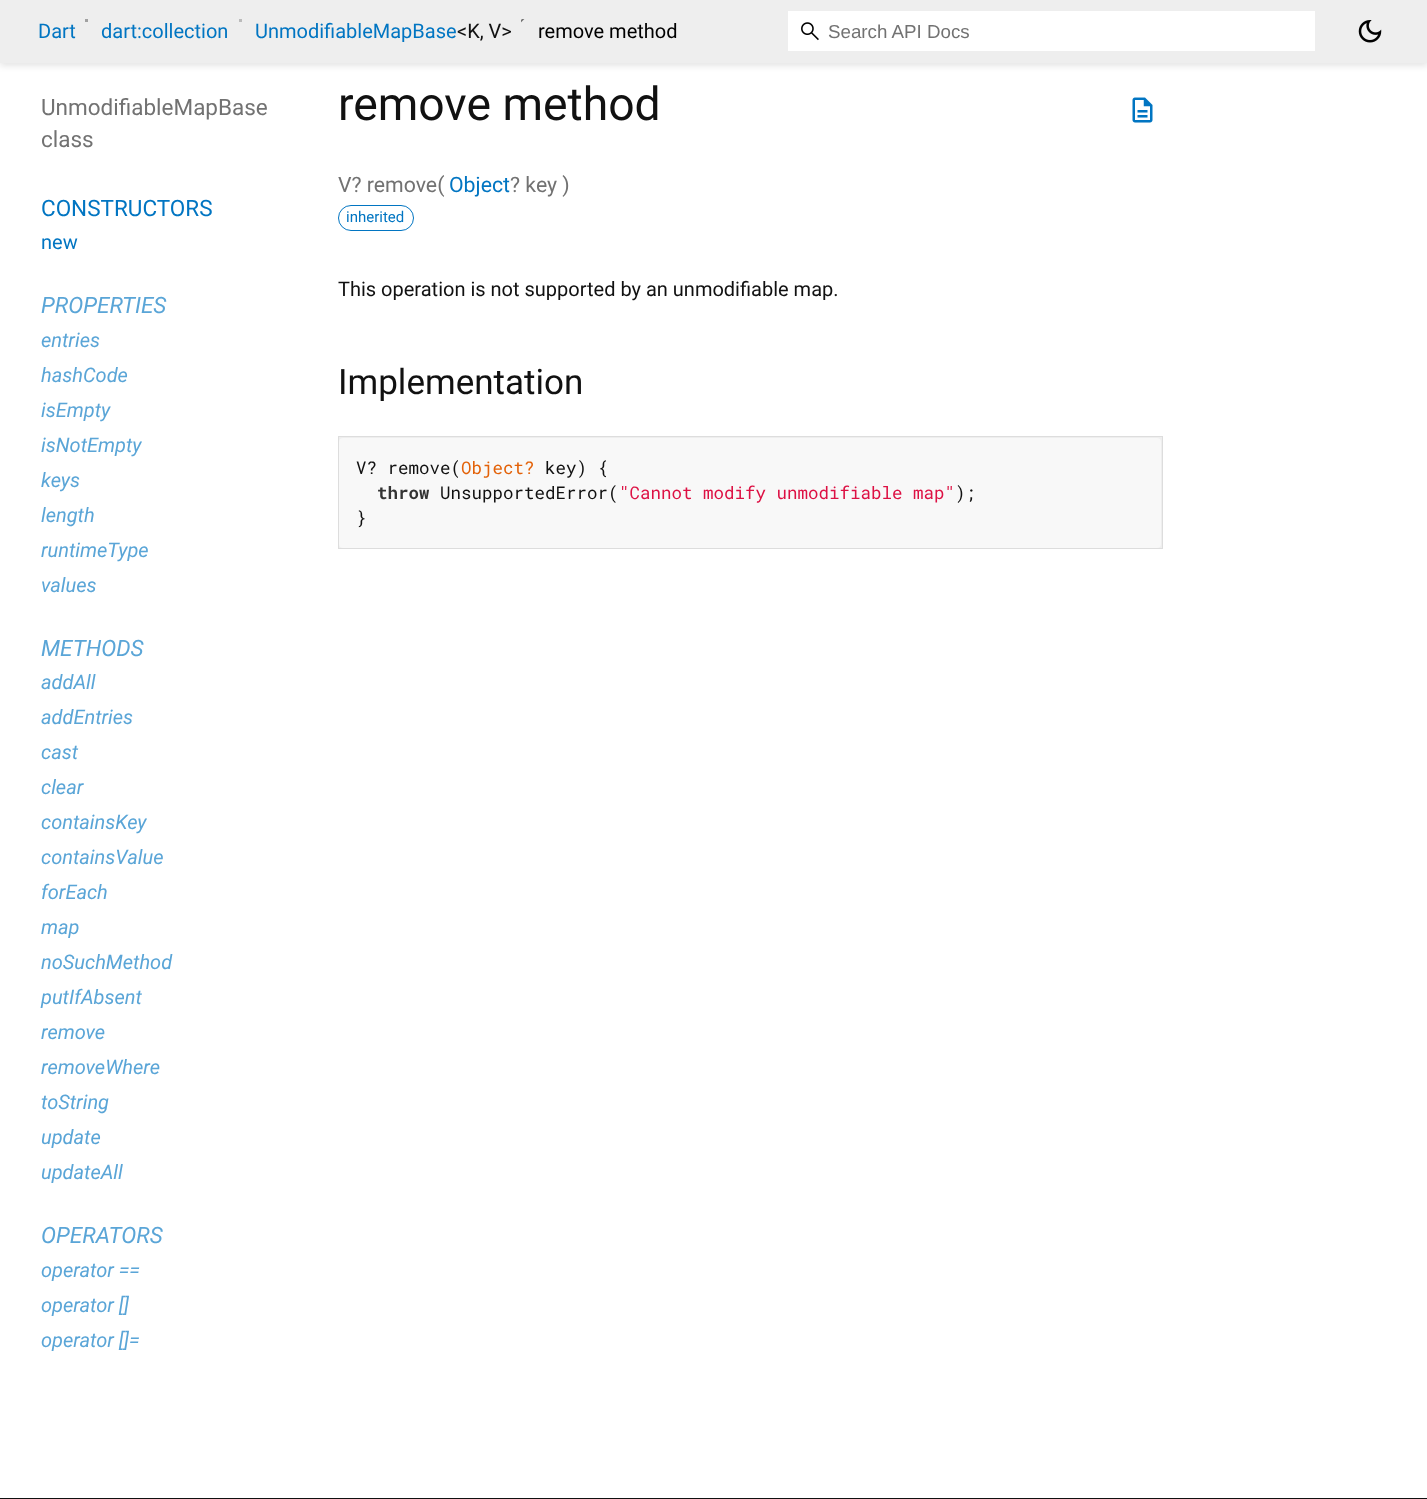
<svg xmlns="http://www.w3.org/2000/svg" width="1427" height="1499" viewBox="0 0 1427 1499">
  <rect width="100%" height="100%" fill="rgb(255,255,255)"/>
  <rect x="0" y="4" width="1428" height="62" fill="rgba(0,0,0,0.1)" filter="blur(3px)"/>
  <rect x="0" y="0" width="1427" height="63" fill="rgb(238,238,238)"/>
  <text x="38" y="38" font-family="Roboto" font-size="20" fill="rgb(1,117,194)">Dart</text>
  <rect x="85" y="19" width="3" height="3" fill="rgb(161,161,161)"/>
  <text x="101" y="38" font-family="Roboto" font-size="20" fill="rgb(1,117,194)">dart:collection</text>
  <rect x="239" y="19" width="3" height="3" fill="rgb(187,187,187)"/>
  <text x="255" y="38" font-family="Roboto" font-size="20" fill="rgb(1,117,194)">UnmodifiableMapBase</text>
  <text x="457" y="38" font-family="Roboto" font-size="20" fill="rgb(17,17,17)">&lt;K, V&gt;</text>
  <image x="521" y="19" width="4" height="4" href="pic1.png"/>
  <text x="538" y="38" font-family="Roboto" font-size="20" fill="rgb(0,0,0)">remove method</text>
  <rect x="788" y="11" width="527" height="40" fill="rgb(255,255,255)"/>
  <image x="801" y="22" width="18" height="19" href="pic2.png"/>
  <text x="828" y="38" font-family="Liberation Sans" font-size="18.75" fill="rgb(114,114,114)">Search API Docs</text>
  <image x="1358" y="20" width="24" height="23" href="pic3.png"/>
  <g font-family="Roboto" font-size="22.5" fill="rgb(114,114,114)">
    <text>
      <tspan x="41" y="115">UnmodifiableMapBase</tspan>
      <tspan x="41" y="147">class</tspan>
    </text>
  </g>
  <text x="41" y="216" font-family="Roboto" font-size="22.5" fill="rgb(1,117,194)">CONSTRUCTORS</text>
  <text x="41" y="249" font-family="Roboto" font-size="20" fill="rgb(1,117,194)">new</text>
  <text x="41" y="313" font-family="Roboto" font-size="22.5" font-style="italic" fill="rgb(90,165,215)">PROPERTIES</text>
  <g font-family="Roboto" font-size="20" font-style="italic" fill="rgb(90,165,215)">
    <text>
      <tspan x="41" y="347">entries</tspan>
      <tspan x="41" y="382">hashCode</tspan>
      <tspan x="41" y="417">isEmpty</tspan>
      <tspan x="41" y="452">isNotEmpty</tspan>
      <tspan x="41" y="487">keys</tspan>
      <tspan x="41" y="522">length</tspan>
      <tspan x="41" y="557">runtimeType</tspan>
      <tspan x="41" y="592">values</tspan>
    </text>
  </g>
  <text x="41" y="656" font-family="Roboto" font-size="22.5" font-style="italic" fill="rgb(90,165,215)">METHODS</text>
  <g font-family="Roboto" font-size="20" font-style="italic" fill="rgb(90,165,215)">
    <text>
      <tspan x="41" y="689">addAll</tspan>
      <tspan x="41" y="724">addEntries</tspan>
      <tspan x="41" y="759">cast</tspan>
      <tspan x="41" y="794">clear</tspan>
      <tspan x="41" y="829">containsKey</tspan>
      <tspan x="41" y="864">containsValue</tspan>
      <tspan x="41" y="899">forEach</tspan>
      <tspan x="41" y="934">map</tspan>
      <tspan x="41" y="969">noSuchMethod</tspan>
      <tspan x="41" y="1004">putIfAbsent</tspan>
      <tspan x="41" y="1039">remove</tspan>
      <tspan x="41" y="1074">removeWhere</tspan>
      <tspan x="41" y="1109">toString</tspan>
      <tspan x="41" y="1144">update</tspan>
      <tspan x="41" y="1179">updateAll</tspan>
    </text>
  </g>
  <text x="41" y="1243" font-family="Roboto" font-size="22.5" font-style="italic" fill="rgb(90,165,215)">OPERATORS</text>
  <g font-family="Roboto" font-size="20" font-style="italic" fill="rgb(90,165,215)">
    <text>
      <tspan x="41" y="1277">operator ==</tspan>
      <tspan x="41" y="1312">operator []</tspan>
      <tspan x="41" y="1347">operator []=</tspan>
    </text>
  </g>
  <text x="338" y="120" font-family="Roboto" font-size="46.25" fill="rgb(17,17,17)">remove method</text>
  <image x="1132" y="97" width="21" height="26" href="pic4.png"/>
  <text x="338" y="192" font-family="Roboto" font-size="21.25" fill="rgb(114,114,114)">V? remove(</text>
  <text x="449" y="192" font-family="Roboto" font-size="21.25" fill="rgb(1,117,194)">Object</text>
  <text x="510" y="192" font-family="Roboto" font-size="21.25" fill="rgb(114,114,114)">? key )</text>
  <rect x="338.5" y="205.5" width="75" height="25" rx="12.5" fill="none" stroke="rgb(1,117,194)"/>
  <text x="346" y="222" font-family="Roboto" font-size="15" fill="rgb(1,117,194)">inherited</text>
  <text x="338" y="296" font-family="Roboto" font-size="20" fill="rgb(17,17,17)">This operation is not supported by an unmodifiable map.</text>
  <text x="338" y="394" font-family="Roboto" font-size="35" fill="rgb(17,17,17)">Implementation</text>
  <rect x="338.5" y="436.5" width="824" height="112" fill="rgb(238,238,238)" stroke="rgb(221,221,221)"/>
  <rect x="339" y="438" width="822" height="110" rx="4" fill="rgb(248,248,248)"/>
  <text x="356" y="474" font-family="Roboto Mono" font-size="17.5" fill="rgb(17,17,17)">V? remove(</text>
  <text x="461" y="474" font-family="Roboto Mono" font-size="17.5" fill="rgb(227,98,9)">Object?</text>
  <text x="545" y="474" font-family="Roboto Mono" font-size="17.5" fill="rgb(17,17,17)">key) {</text>
  <text x="377" y="499" font-family="Roboto Mono" font-size="17.5" font-weight="bold" fill="rgb(51,51,51)">throw</text>
  <text x="440" y="499" font-family="Roboto Mono" font-size="17.5" fill="rgb(17,17,17)">UnsupportedError(</text>
  <text x="619" y="499" font-family="Roboto Mono" font-size="17.5" fill="rgb(221,17,68)">"Cannot modify unmodifiable map"</text>
  <g font-family="Roboto Mono" font-size="17.5" fill="rgb(17,17,17)">
    <text x="955" y="499">);</text>
    <text x="356" y="524">}</text>
  </g>
  <rect x="0" y="1498" width="1427" height="1" fill="rgb(17,17,17)"/>
</svg>
